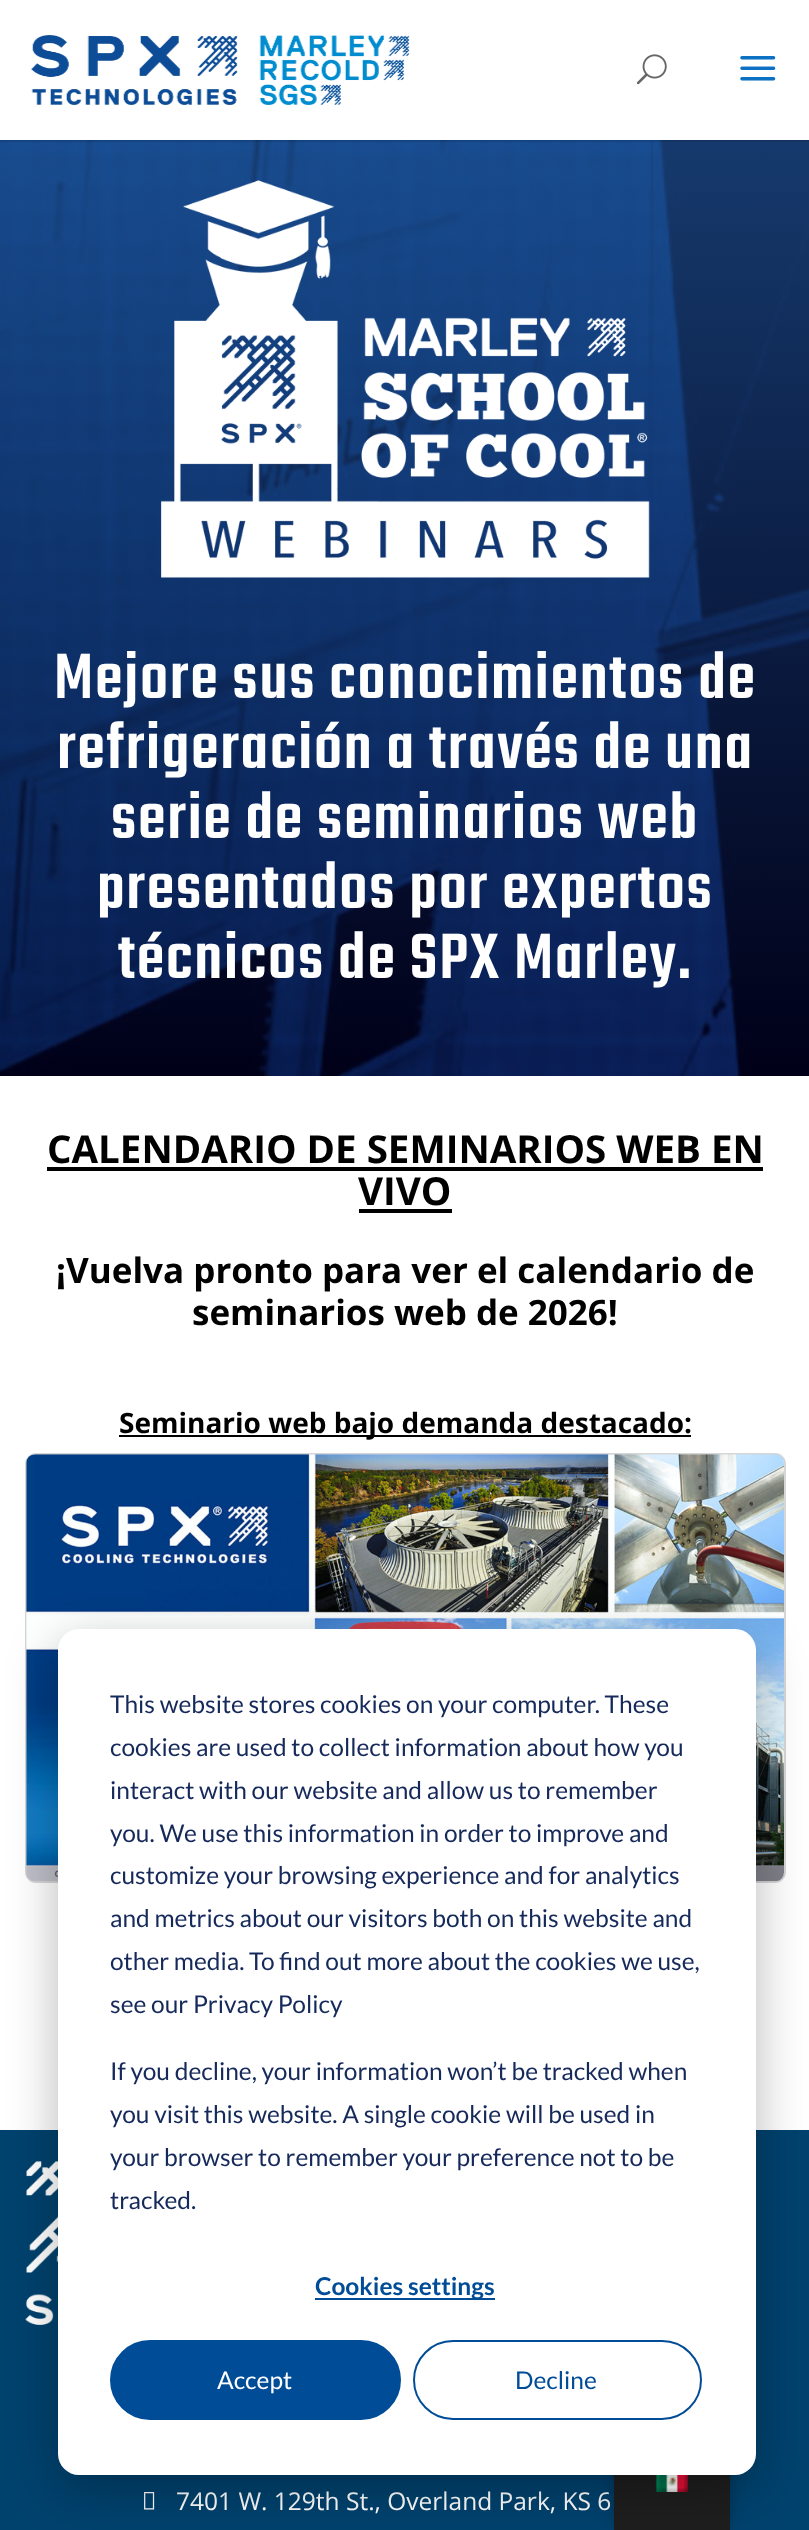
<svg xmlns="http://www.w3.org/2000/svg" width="809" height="2530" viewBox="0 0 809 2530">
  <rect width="100%" height="100%" fill="rgb(255,255,255)"/>
  <image x="0" y="140" width="809" height="936" href="pic4.png"/>
  <rect x="0" y="140" width="809" height="2" fill="rgba(0,0,0,0.1)"/>
  <image x="30" y="35" width="380" height="70" href="pic1.png"/>
  <image x="636" y="54" width="31" height="31" href="pic2.png"/>
  <image x="740" y="56" width="36" height="25" href="pic3.png"/>
  <image x="161" y="180" width="489" height="398" href="pic5.png"/>
  <g font-family="Teko" font-size="70" font-weight="500" letter-spacing="1.75" fill="rgb(255,255,255)">
    <text x="54" y="698">Mejore sus conocimientos de</text>
    <text x="57" y="768">refrigeración a través de una</text>
    <text x="111" y="838">serie de seminarios web</text>
    <text x="97" y="908">presentados por expertos</text>
    <text x="118" y="978">técnicos de SPX Marley.</text>
  </g>
  <text x="47" y="1163" font-family="Open Sans" font-size="38.5" font-weight="bold" fill="rgb(0,0,0)">CALENDARIO DE SEMINARIOS WEB EN</text>
  <rect x="47" y="1167" width="716" height="4" fill="rgb(0,0,0)"/>
  <text x="358" y="1205" font-family="Open Sans" font-size="38.5" font-weight="bold" fill="rgb(0,0,0)">VIVO</text>
  <rect x="359" y="1209" width="93" height="4" fill="rgb(0,0,0)"/>
  <g font-family="Open Sans" font-size="35" font-weight="bold" fill="rgb(0,0,0)">
    <text x="56" y="1283">¡Vuelva pronto para ver el calendario de</text>
    <text x="192" y="1325">seminarios web de 2026!</text>
  </g>
  <rect x="119" y="1435" width="572" height="2" fill="rgb(0,0,0)"/>
  <text x="119" y="1433" font-family="Open Sans" font-size="28" font-weight="bold" fill="rgb(0,0,0)">Seminario web bajo demanda destacado:</text>
  <rect x="26" y="1454" width="759" height="428" rx="10" fill="none" stroke="rgb(214,214,214)" stroke-width="2"/>
  <image x="26" y="1454" width="758" height="428" href="pic6.png"/>
  <rect x="0" y="2130" width="809" height="400" fill="rgb(0,66,110)"/>
  <image x="25" y="2161" width="33" height="164" href="pic7.png"/>
  <image x="144" y="2492" width="11" height="18" href="pic8.png"/>
  <text x="176" y="2510" font-family="Open Sans" font-size="24.5" fill="rgb(255,255,255)">7401 W. 129th St., Overland Park, KS 6</text>
  <rect x="614" y="2429" width="116" height="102" rx="14" fill="rgba(0,0,0,0.25)" filter="blur(7px)"/>
  <rect x="614" y="2475" width="116" height="55" fill="rgb(30,30,30)"/>
  <image x="655" y="2475" width="33" height="17" href="pic9.png"/>
  <rect x="58" y="1643" width="698" height="846" rx="21" fill="rgba(0,0,0,0.28)" filter="blur(24.5px)"/>
  <rect x="58" y="1629" width="698" height="846" rx="21" fill="rgb(255,255,255)"/>
  <g font-family="Lato" font-size="24.5" fill="rgb(21,41,90)">
    <text>
      <tspan x="110" y="1713">This website stores cookies on your computer. These</tspan>
      <tspan x="110" y="1756">cookies are used to collect information about how you</tspan>
      <tspan x="110" y="1799">interact with our website and allow us to remember</tspan>
      <tspan x="110" y="1842">you. We use this information in order to improve and</tspan>
      <tspan x="110" y="1884">customize your browsing experience and for analytics</tspan>
      <tspan x="110" y="1927">and metrics about our visitors both on this website and</tspan>
      <tspan x="110" y="1970">other media. To find out more about the cookies we use,</tspan>
      <tspan x="110" y="2013">see our Privacy Policy</tspan>
    </text>
    <text>
      <tspan x="110" y="2080">If you decline, your information won’t be tracked when</tspan>
      <tspan x="110" y="2123">you visit this website. A single cookie will be used in</tspan>
      <tspan x="110" y="2166">your browser to remember your preference not to be</tspan>
      <tspan x="110" y="2209">tracked.</tspan>
    </text>
  </g>
  <rect x="315" y="2298" width="180" height="2" fill="rgb(0,76,151)"/>
  <text x="315" y="2295" font-family="Lato" font-size="24.5" font-weight="bold" fill="rgb(0,76,151)">Cookies settings</text>
  <rect x="111" y="2341" width="289" height="78" rx="39" fill="rgb(0,76,151)" stroke="rgb(0,76,151)" stroke-width="2"/>
  <text x="217" y="2389" font-family="Lato" font-size="24.5" fill="rgb(255,255,255)">Accept</text>
  <rect x="414" y="2341" width="287" height="78" rx="39" fill="none" stroke="rgb(0,76,151)" stroke-width="2"/>
  <text x="515" y="2389" font-family="Lato" font-size="24.5" fill="rgb(0,76,151)">Decline</text>
</svg>
